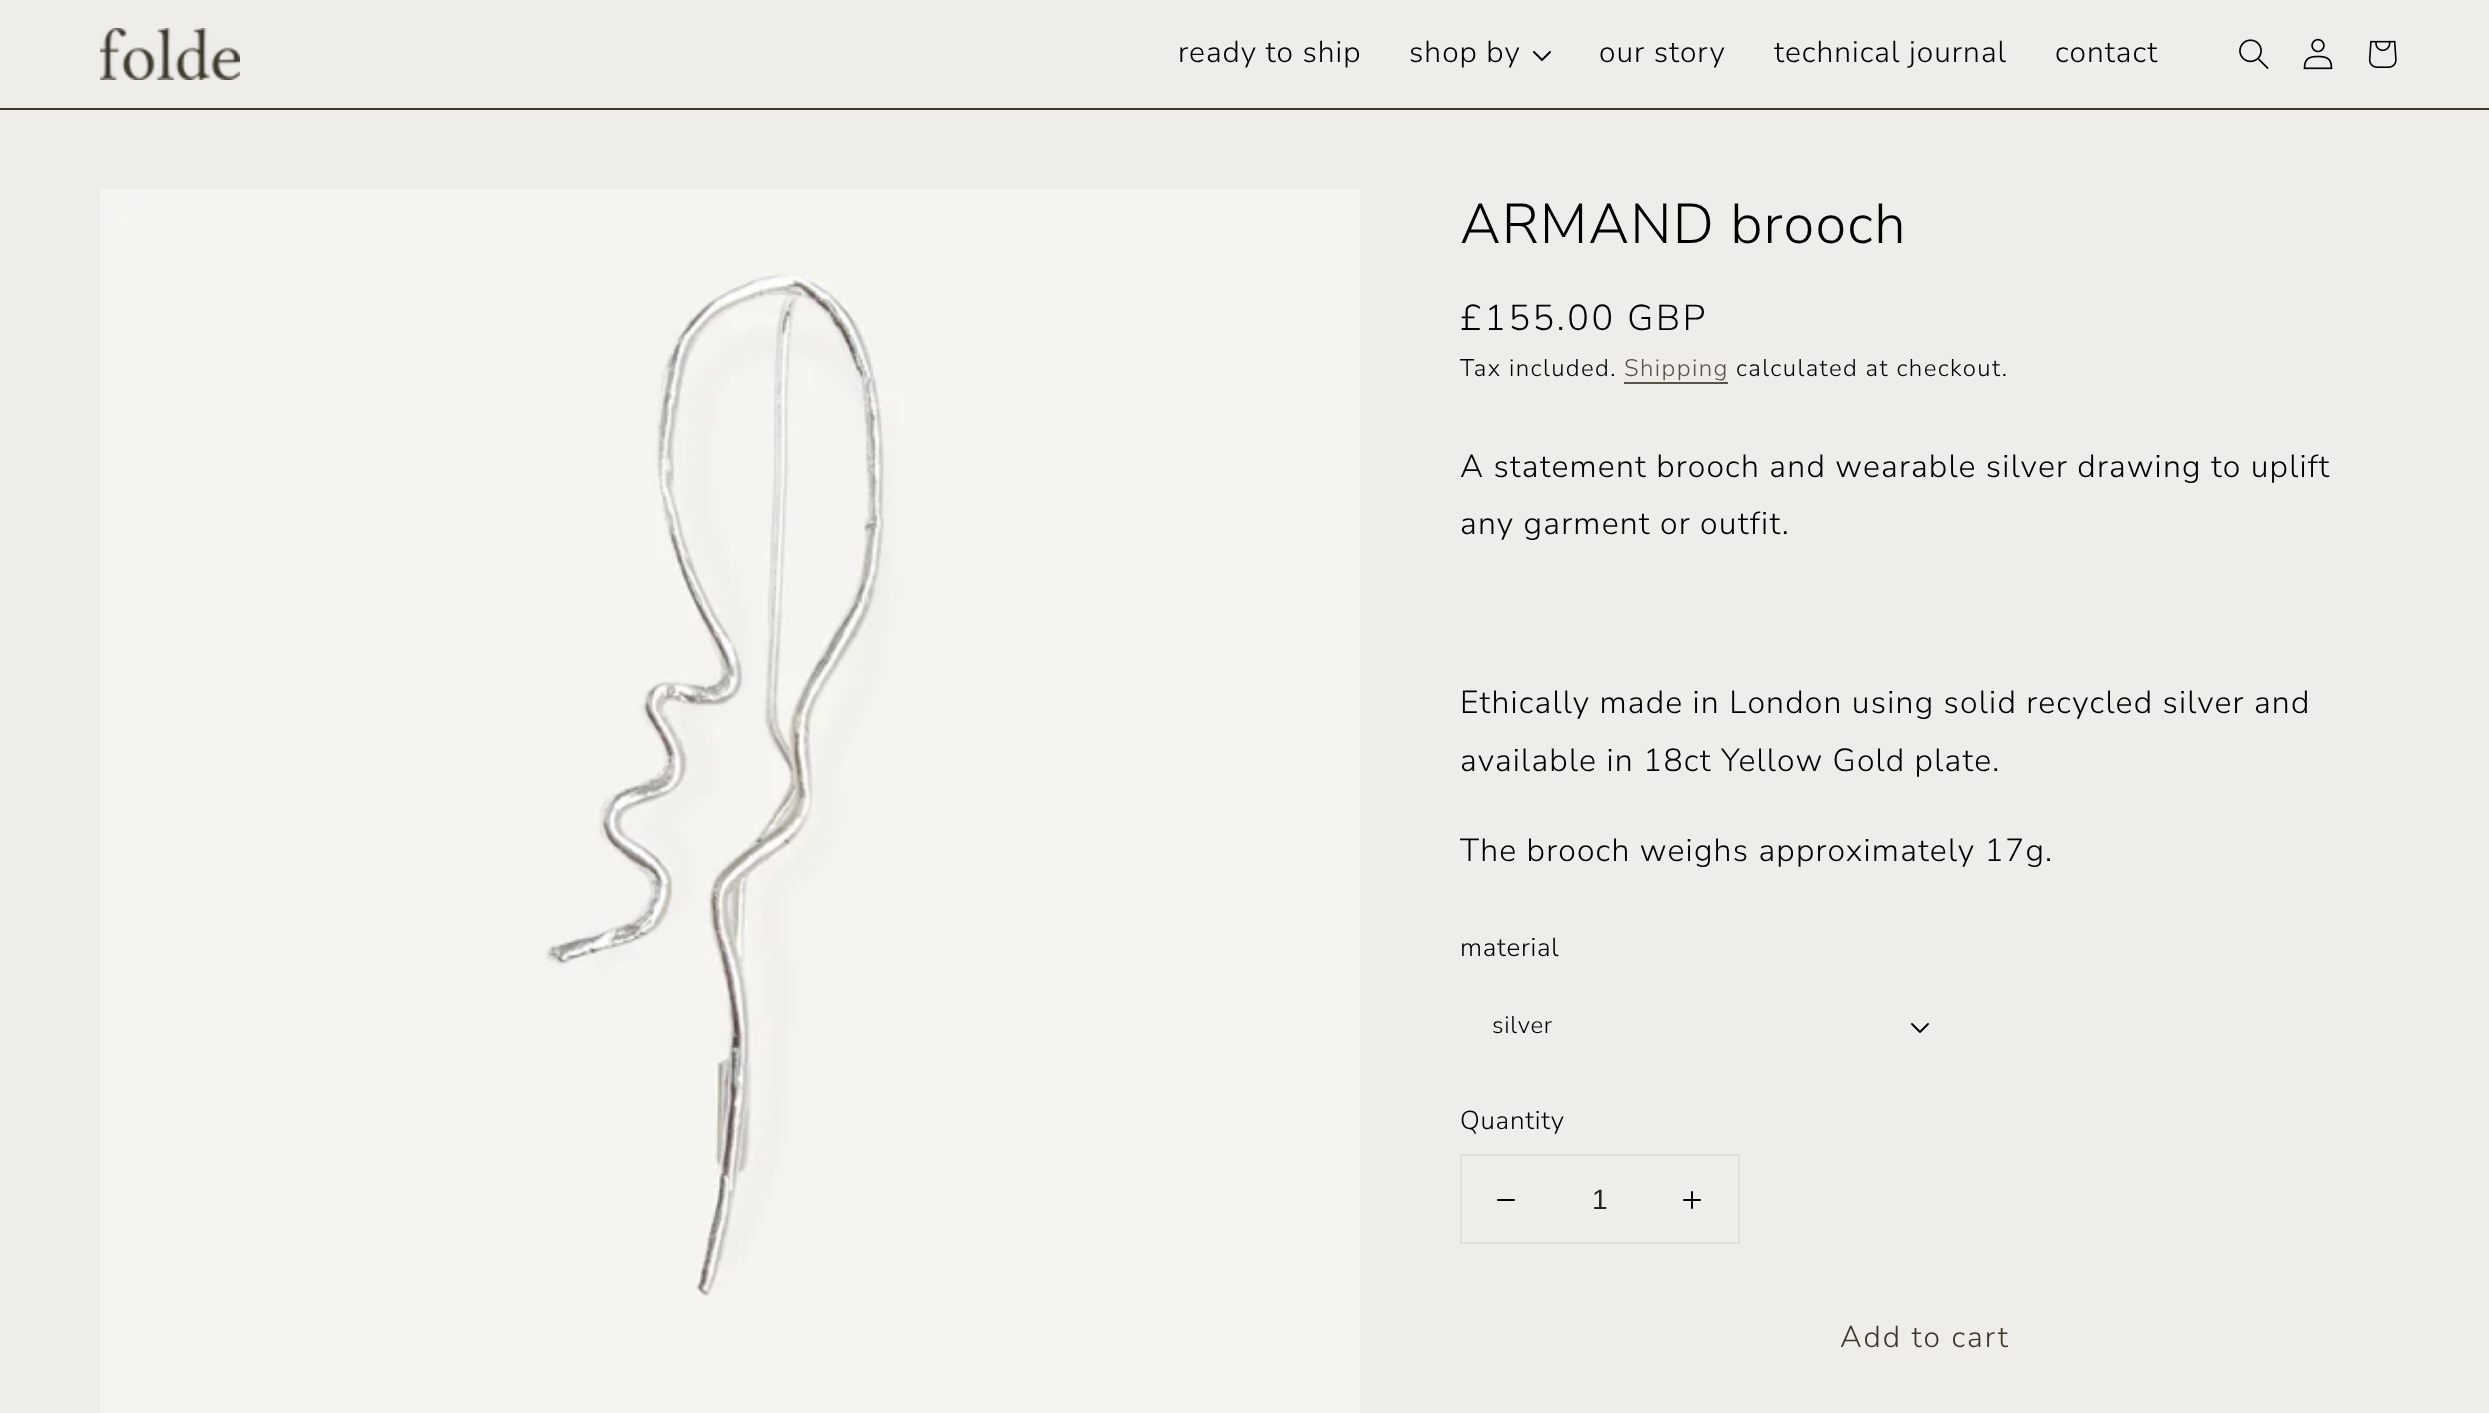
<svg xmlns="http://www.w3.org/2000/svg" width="2489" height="1413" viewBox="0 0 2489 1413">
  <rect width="100%" height="100%" fill="rgb(239,237,233)"/>
  <rect x="0" y="108" width="2489" height="2" fill="rgb(62,56,44)"/>
  <image x="100" y="28" width="140" height="52" href="pic1.png"/>
  <g font-family="Nunito Sans" font-size="30" font-weight="300" letter-spacing="1" fill="rgb(0,0,0)">
    <text x="1178" y="62">ready to ship</text>
    <text x="1409" y="62">shop by</text>
  </g>
  <image x="1533" y="51" width="18" height="10" href="pic2.png"/>
  <g font-family="Nunito Sans" font-size="30" font-weight="300" letter-spacing="1" fill="rgb(0,0,0)">
    <text x="1599" y="62">our story</text>
    <text x="1774" y="62">technical journal</text>
    <text x="2055" y="62">contact</text>
  </g>
  <image x="2239" y="39" width="30" height="30" href="pic3.png"/>
  <image x="2303" y="38" width="30" height="32" href="pic4.png"/>
  <image x="2368" y="40" width="29" height="28" href="pic5.png"/>
  <image x="100" y="190" width="1260" height="1223" href="pic6.png"/>
  <text x="1460" y="243" font-family="Nunito Sans" font-size="56" font-weight="300" letter-spacing="1.2" fill="rgb(0,0,0)">ARMAND brooch</text>
  <text x="1460" y="330" font-family="Nunito Sans" font-size="36" font-weight="300" letter-spacing="2.6" fill="rgb(0,0,0)">£155.00 GBP</text>
  <text x="1460" y="376" font-family="Nunito Sans" font-size="24" font-weight="300" letter-spacing="1.4" fill="rgb(0,0,0)">Tax included.</text>
  <text x="1624" y="376" font-family="Nunito Sans" font-size="24" font-weight="300" letter-spacing="1.4" fill="rgb(89,83,72)">Shipping</text>
  <rect x="1624" y="382" width="104" height="2" fill="rgb(89,83,72)"/>
  <text x="1736" y="376" font-family="Nunito Sans" font-size="24" font-weight="300" letter-spacing="1.4" fill="rgb(0,0,0)">calculated at checkout.</text>
  <g font-family="Nunito Sans" font-size="32" font-weight="300" letter-spacing="1.2" fill="rgb(0,0,0)">
    <text>
      <tspan x="1460" y="477">A statement brooch and wearable silver drawing to uplift</tspan>
      <tspan x="1460" y="534">any garment or outfit.</tspan>
    </text>
    <text>
      <tspan x="1460" y="713">Ethically made in London using solid recycled silver and</tspan>
      <tspan x="1460" y="771">available in 18ct Yellow Gold plate.</tspan>
    </text>
    <text x="1460" y="861">The brooch weighs approximately 17g.</text>
  </g>
  <text x="1460" y="956" font-family="Nunito Sans" font-size="26" font-weight="300" letter-spacing="0.75" fill="rgb(0,0,0)">material</text>
  <text x="1492" y="1033" font-family="Nunito Sans" font-size="24" font-weight="300" letter-spacing="0.75" fill="rgb(0,0,0)">silver</text>
  <image x="1911" y="1023" width="18" height="10" href="pic2.png"/>
  <text x="1460" y="1129" font-family="Nunito Sans" font-size="26" font-weight="300" letter-spacing="0.75" fill="rgb(0,0,0)">Quantity</text>
  <rect x="1461" y="1155" width="278" height="88" fill="none" stroke="rgb(225,223,218)" stroke-width="2"/>
  <image x="1497" y="1199" width="18" height="2" href="pic7.png"/>
  <text x="1592" y="1209" font-family="Liberation Sans" font-size="28" fill="rgb(36,36,35)">1</text>
  <image x="1683" y="1191" width="18" height="18" href="pic8.png"/>
  <text x="1840" y="1347" font-family="Nunito Sans" font-size="30" font-weight="300" letter-spacing="2" fill="rgb(62,56,44)">Add to cart</text>
</svg>
